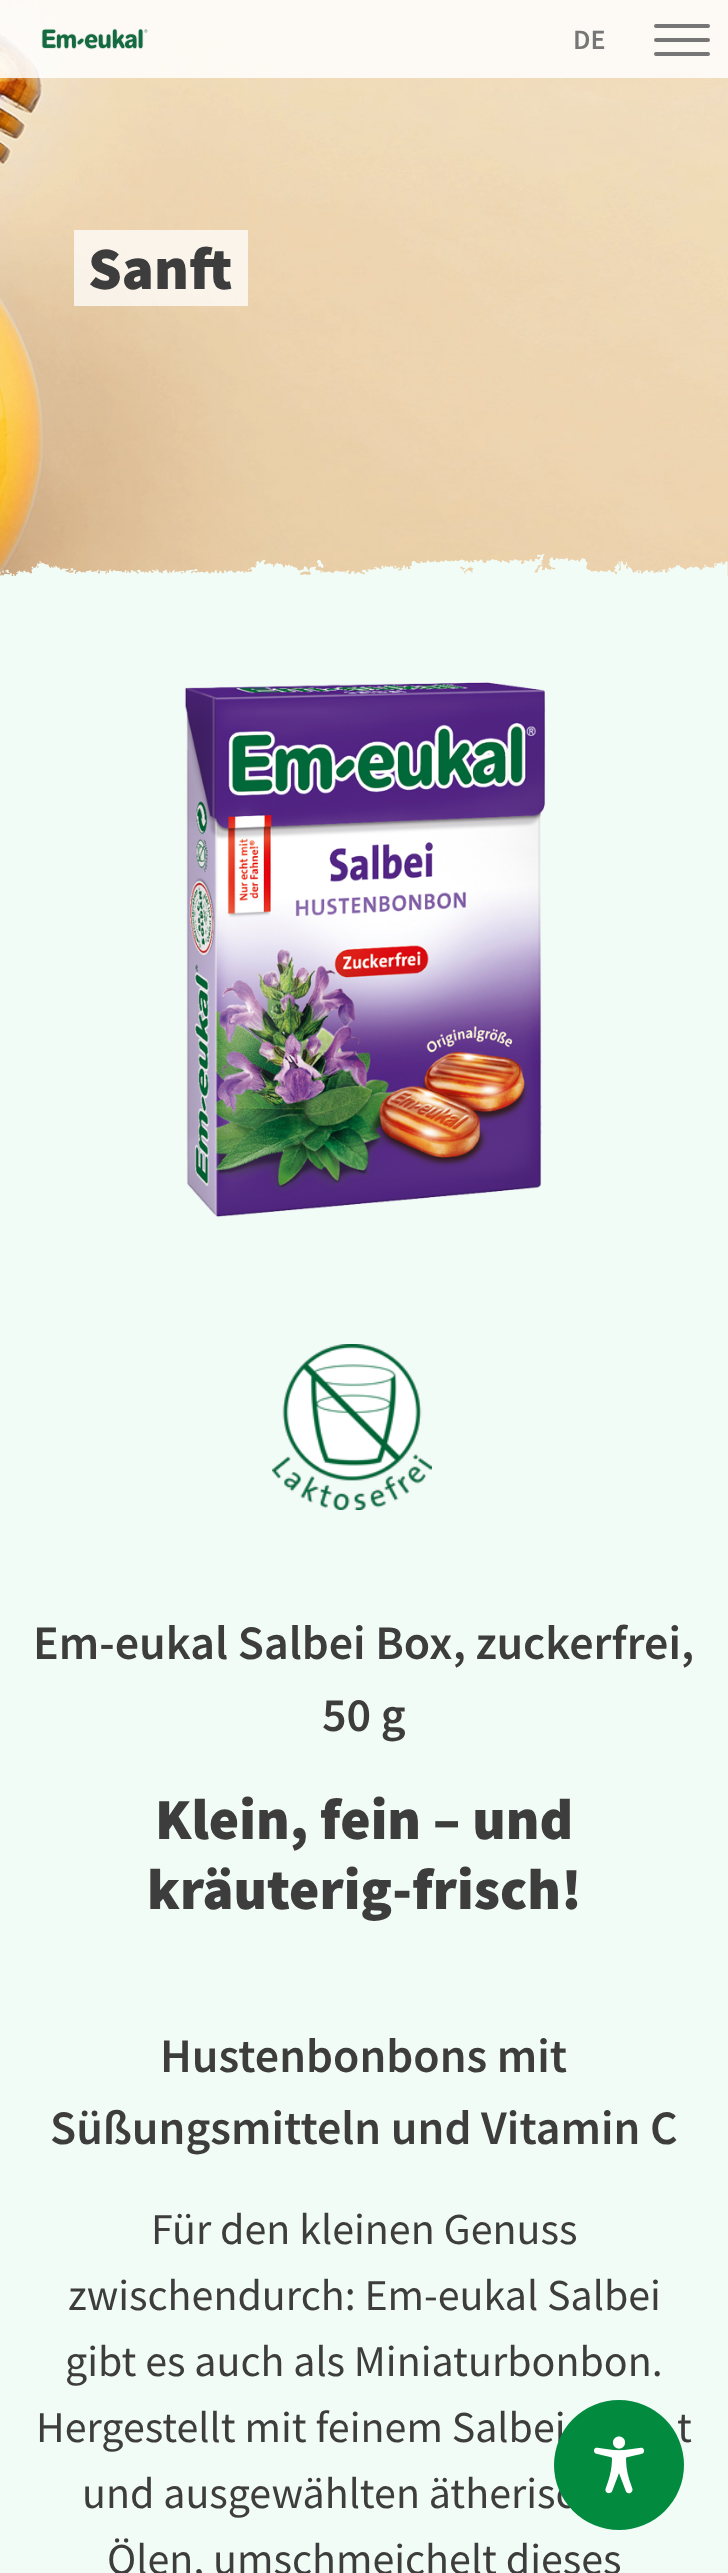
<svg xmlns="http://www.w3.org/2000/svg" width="728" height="2573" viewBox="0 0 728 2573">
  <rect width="100%" height="100%" fill="rgb(242,252,247)"/>
  <image x="0" y="0" width="728" height="576" href="pic2.png"/>
  <rect x="0" y="0" width="728" height="78" fill="rgba(255,255,255,0.85)"/>
  <image x="41" y="28" width="107" height="22" href="pic1.png"/>
  <text x="573" y="49" font-family="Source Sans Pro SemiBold" font-size="28" font-weight="600" fill="rgb(118,118,118)">DE</text>
  <rect x="654" y="24" width="56" height="4" rx="2" fill="rgb(118,118,118)"/>
  <rect x="654" y="38" width="56" height="4" rx="2" fill="rgb(118,118,118)"/>
  <rect x="654" y="52" width="56" height="4" rx="2" fill="rgb(118,118,118)"/>
  <rect x="88" y="230" width="144" height="76" fill="rgba(255,255,255,0.75)"/>
  <text x="88" y="289" font-family="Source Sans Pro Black" font-size="60" font-weight="900" fill="rgb(61,61,61)">Sanft</text>
  <rect x="232" y="230" width="16" height="76" fill="rgba(255,255,255,0.75)"/>
  <rect x="74" y="230" width="14" height="76" fill="rgba(255,255,255,0.75)"/>
  <image x="0" y="554" width="728" height="22" href="pic3.png"/>
  <image x="184" y="682" width="362" height="535" href="pic4.png"/>
  <image x="272" y="1344" width="160" height="166" href="pic5.png"/>
  <g font-family="Source Sans Pro SemiBold" font-size="48" font-weight="600" fill="rgb(61,61,61)">
    <text x="33" y="1659">Em-eukal Salbei Box, zuckerfrei,</text>
    <text x="322" y="1731">50 g</text>
  </g>
  <g font-family="Source Sans Pro Black" font-size="58" font-weight="900" fill="rgb(61,61,61)">
    <text x="155" y="1839">Klein, fein – und</text>
    <text x="147" y="1909">kräuterig-frisch!</text>
  </g>
  <g font-family="Source Sans Pro SemiBold" font-size="48" font-weight="600" fill="rgb(61,61,61)">
    <text x="160" y="2072">Hustenbonbons mit</text>
    <text x="50" y="2144">Süßungsmitteln und Vitamin C</text>
  </g>
  <g font-family="Source Sans Pro" font-size="44" fill="rgb(61,61,61)">
    <text x="151" y="2244">Für den kleinen Genuss</text>
    <text x="68" y="2310">zwischendurch: Em-eukal Salbei</text>
    <text x="65" y="2376">gibt es auch als Miniaturbonbon.</text>
    <text x="36" y="2442">Hergestellt mit feinem Salbei</text>
    <text x="677" y="2442">t</text>
    <text x="82" y="2508">und ausgewählten ätherisc</text>
    <text x="107" y="2574">Ölen, umschmeichelt dieses</text>
  </g>
  <circle cx="619" cy="2465" r="65" fill="rgb(2,138,63)"/>
  <image x="593" y="2436" width="52" height="58" href="pic6.png"/>
</svg>
